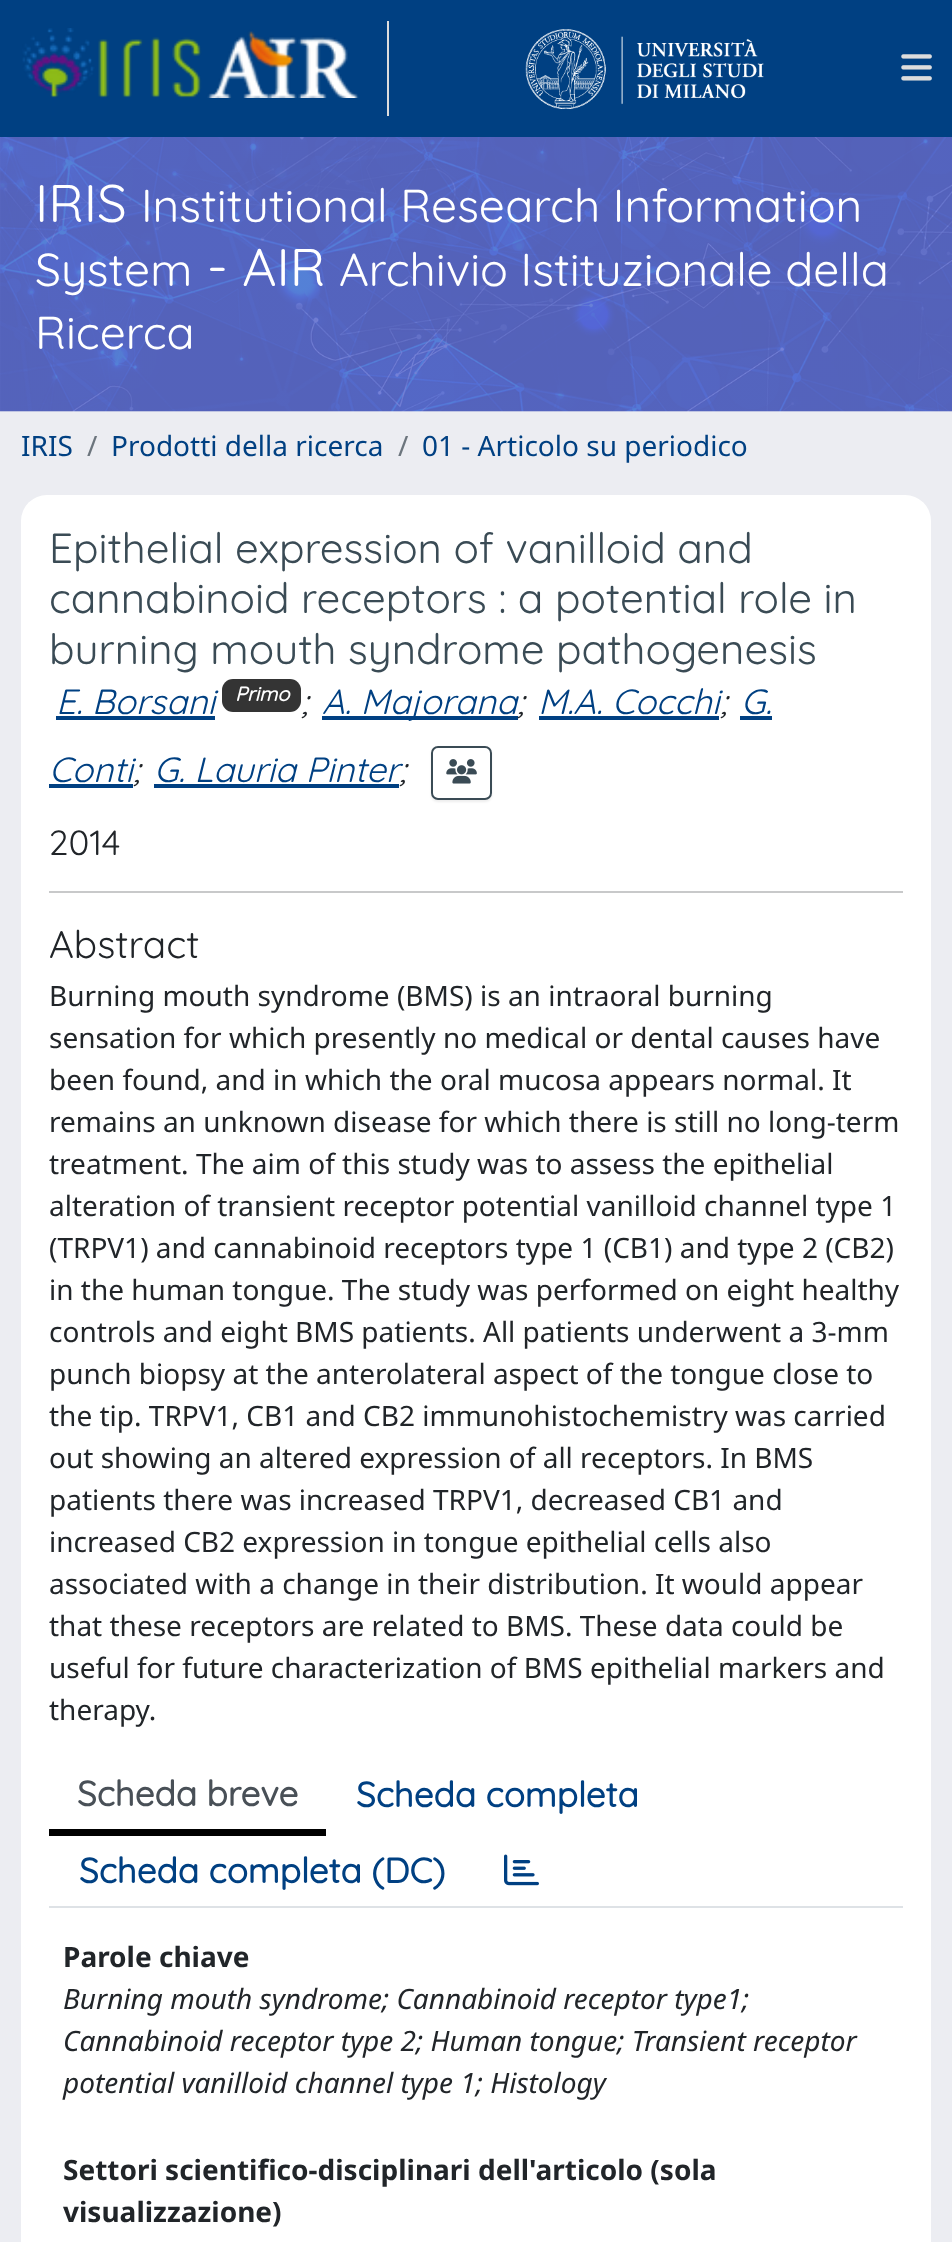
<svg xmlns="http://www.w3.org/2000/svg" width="952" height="2242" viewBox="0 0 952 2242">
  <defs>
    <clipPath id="clip1"><path d="M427 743H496V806H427ZM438 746H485C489 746 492 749 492 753V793C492 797 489 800 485 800H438C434 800 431 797 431 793V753C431 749 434 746 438 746Z" clip-rule="evenodd"/></clipPath>
  </defs>
  <rect width="100%" height="100%" fill="rgb(236,237,242)"/>
  <rect x="0" y="0" width="952" height="137" fill="rgb(0,64,130)"/>
  <rect x="387" y="21" width="2" height="95" fill="rgb(221,221,221)"/>
  <image x="22" y="28" width="337" height="70" href="pic1.png"/>
  <image x="525" y="29" width="239" height="80" href="pic2.png"/>
  <image x="901" y="54" width="31" height="27" href="pic3.png"/>
  <image x="0" y="137" width="952" height="275" href="pic4.png"/>
  <text x="35" y="222" font-family="Quicksand" font-size="53" fill="rgb(255,255,255)">IRIS</text>
  <g font-family="Quicksand" font-size="46.2" fill="rgb(255,255,255)">
    <text x="141" y="222">Institutional Research Information</text>
    <text x="35" y="286">System</text>
  </g>
  <text x="207" y="286" font-family="Quicksand" font-size="53" fill="rgb(255,255,255)">- AIR</text>
  <g font-family="Quicksand" font-size="46.2" fill="rgb(255,255,255)">
    <text x="339" y="286">Archivio Istituzionale della</text>
    <text x="35" y="349">Ricerca</text>
  </g>
  <text x="21" y="456" font-family="Noto Sans" font-size="28" fill="rgb(0,64,130)">IRIS</text>
  <text x="87" y="456" font-family="Noto Sans" font-size="28" fill="rgb(108,117,125)">/</text>
  <text x="111" y="456" font-family="Noto Sans" font-size="28" fill="rgb(0,64,130)">Prodotti della ricerca</text>
  <text x="398" y="456" font-family="Noto Sans" font-size="28" fill="rgb(108,117,125)">/</text>
  <text x="422" y="456" font-family="Noto Sans" font-size="28" fill="rgb(0,64,130)">01 - Articolo su periodico</text>
  <rect x="21" y="495" width="910" height="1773" rx="26" fill="rgb(255,255,255)"/>
  <g font-family="Quicksand" font-size="42.1" fill="rgb(58,75,85)">
    <text>
      <tspan x="49" y="563">Epithelial expression of vanilloid and</tspan>
      <tspan x="49" y="613">cannabinoid receptors : a potential role in</tspan>
      <tspan x="49" y="664">burning mouth syndrome pathogenesis</tspan>
    </text>
  </g>
  <text x="56" y="714" font-family="Quicksand" font-size="35" font-style="italic" fill="rgb(0,64,130)">E. Borsani</text>
  <rect x="56" y="716" width="159" height="4" fill="rgb(0,64,130)"/>
  <rect x="222" y="679" width="79" height="33" rx="11" fill="rgb(52,52,52)"/>
  <text x="235" y="701" font-family="Quicksand" font-size="20" font-weight="bold" font-style="italic" fill="rgb(255,255,255)">Primo</text>
  <text x="301" y="714" font-family="Quicksand" font-size="35" font-style="italic" fill="rgb(33,37,41)">;</text>
  <rect x="322" y="716" width="196" height="4" fill="rgb(0,64,130)"/>
  <text x="322" y="714" font-family="Quicksand" font-size="35" font-style="italic" fill="rgb(0,64,130)">A. Majorana</text>
  <text x="517" y="714" font-family="Quicksand" font-size="35" font-style="italic" fill="rgb(33,37,41)">;</text>
  <text x="538" y="714" font-family="Quicksand" font-size="35" font-style="italic" fill="rgb(0,64,130)">M.A. Cocchi</text>
  <text x="720" y="714" font-family="Quicksand" font-size="35" font-style="italic" fill="rgb(33,37,41)">;</text>
  <rect x="539" y="716" width="180" height="4" fill="rgb(0,64,130)"/>
  <text x="741" y="714" font-family="Quicksand" font-size="35" font-style="italic" fill="rgb(0,64,130)">G.</text>
  <rect x="740" y="716" width="32" height="4" fill="rgb(0,64,130)"/>
  <text x="49" y="782" font-family="Quicksand" font-size="35" font-style="italic" fill="rgb(0,64,130)">Conti</text>
  <text x="133" y="782" font-family="Quicksand" font-size="35" font-style="italic" fill="rgb(33,37,41)">;</text>
  <rect x="49" y="784" width="84" height="4" fill="rgb(0,64,130)"/>
  <text x="154" y="782" font-family="Quicksand" font-size="35" font-style="italic" fill="rgb(0,64,130)">G. Lauria Pinter</text>
  <text x="399" y="782" font-family="Quicksand" font-size="35" font-style="italic" fill="rgb(33,37,41)">;</text>
  <rect x="154" y="784" width="245" height="4" fill="rgb(0,64,130)"/>
  <g clip-path="url(#clip1)">
    <rect x="431" y="747" width="61" height="55" rx="7" fill="rgba(0,0,0,0.07)" filter="blur(1px)"/>
  </g>
  <rect x="432" y="747" width="59" height="52" rx="6" fill="none" stroke="rgb(58,75,85)" stroke-width="2"/>
  <image x="446" y="759" width="31" height="25" href="pic5.png"/>
  <text x="49" y="855" font-family="Quicksand" font-size="35" fill="rgb(33,37,41)">2014</text>
  <rect x="49" y="891" width="854" height="2" fill="rgb(200,201,202)"/>
  <text x="49" y="958" font-family="Quicksand" font-size="38.5" fill="rgb(33,37,41)">Abstract</text>
  <g font-family="Noto Sans" font-size="28" fill="rgb(33,37,41)">
    <text>
      <tspan x="49" y="1006">Burning mouth syndrome (BMS) is an intraoral burning</tspan>
      <tspan x="49" y="1048">sensation for which presently no medical or dental causes have</tspan>
      <tspan x="49" y="1090">been found, and in which the oral mucosa appears normal. It</tspan>
      <tspan x="49" y="1132">remains an unknown disease for which there is still no long-term</tspan>
      <tspan x="49" y="1174">treatment. The aim of this study was to assess the epithelial</tspan>
      <tspan x="49" y="1216">alteration of transient receptor potential vanilloid channel type 1</tspan>
      <tspan x="49" y="1258">(TRPV1) and cannabinoid receptors type 1 (CB1) and type 2 (CB2)</tspan>
      <tspan x="49" y="1300">in the human tongue. The study was performed on eight healthy</tspan>
      <tspan x="49" y="1342">controls and eight BMS patients. All patients underwent a 3-mm</tspan>
      <tspan x="49" y="1384">punch biopsy at the anterolateral aspect of the tongue close to</tspan>
      <tspan x="49" y="1426">the tip. TRPV1, CB1 and CB2 immunohistochemistry was carried</tspan>
      <tspan x="49" y="1468">out showing an altered expression of all receptors. In BMS</tspan>
      <tspan x="49" y="1510">patients there was increased TRPV1, decreased CB1 and</tspan>
      <tspan x="49" y="1552">increased CB2 expression in tongue epithelial cells also</tspan>
      <tspan x="49" y="1594">associated with a change in their distribution. It would appear</tspan>
      <tspan x="49" y="1636">that these receptors are related to BMS. These data could be</tspan>
      <tspan x="49" y="1678">useful for future characterization of BMS epithelial markers and</tspan>
      <tspan x="49" y="1720">therapy.</tspan>
    </text>
  </g>
  <rect x="49" y="1906" width="854" height="2" fill="rgb(222,226,230)"/>
  <rect x="49" y="1829" width="277" height="7" fill="rgb(0,0,0)"/>
  <text x="77" y="1806" font-family="Quicksand" font-size="35" font-weight="bold" fill="rgb(73,80,87)">Scheda breve</text>
  <g font-family="Quicksand" font-size="35" font-weight="bold" fill="rgb(0,64,130)">
    <text x="356" y="1807">Scheda completa</text>
    <text x="79" y="1883">Scheda completa (DC)</text>
  </g>
  <image x="504" y="1854" width="35" height="32" href="pic6.png"/>
  <text x="63" y="1967" font-family="Noto Sans" font-size="28" font-weight="bold" fill="rgb(33,37,41)">Parole chiave</text>
  <g font-family="Noto Sans" font-size="28" font-style="italic" fill="rgb(33,37,41)">
    <text>
      <tspan x="63" y="2009">Burning mouth syndrome; Cannabinoid receptor type1;</tspan>
      <tspan x="63" y="2051">Cannabinoid receptor type 2; Human tongue; Transient receptor</tspan>
      <tspan x="63" y="2093">potential vanilloid channel type 1; Histology</tspan>
    </text>
  </g>
  <g font-family="Noto Sans" font-size="28" font-weight="bold" fill="rgb(33,37,41)">
    <text>
      <tspan x="63" y="2180">Settori scientifico-disciplinari dell'articolo (sola</tspan>
      <tspan x="63" y="2222">visualizzazione)</tspan>
    </text>
  </g>
</svg>
